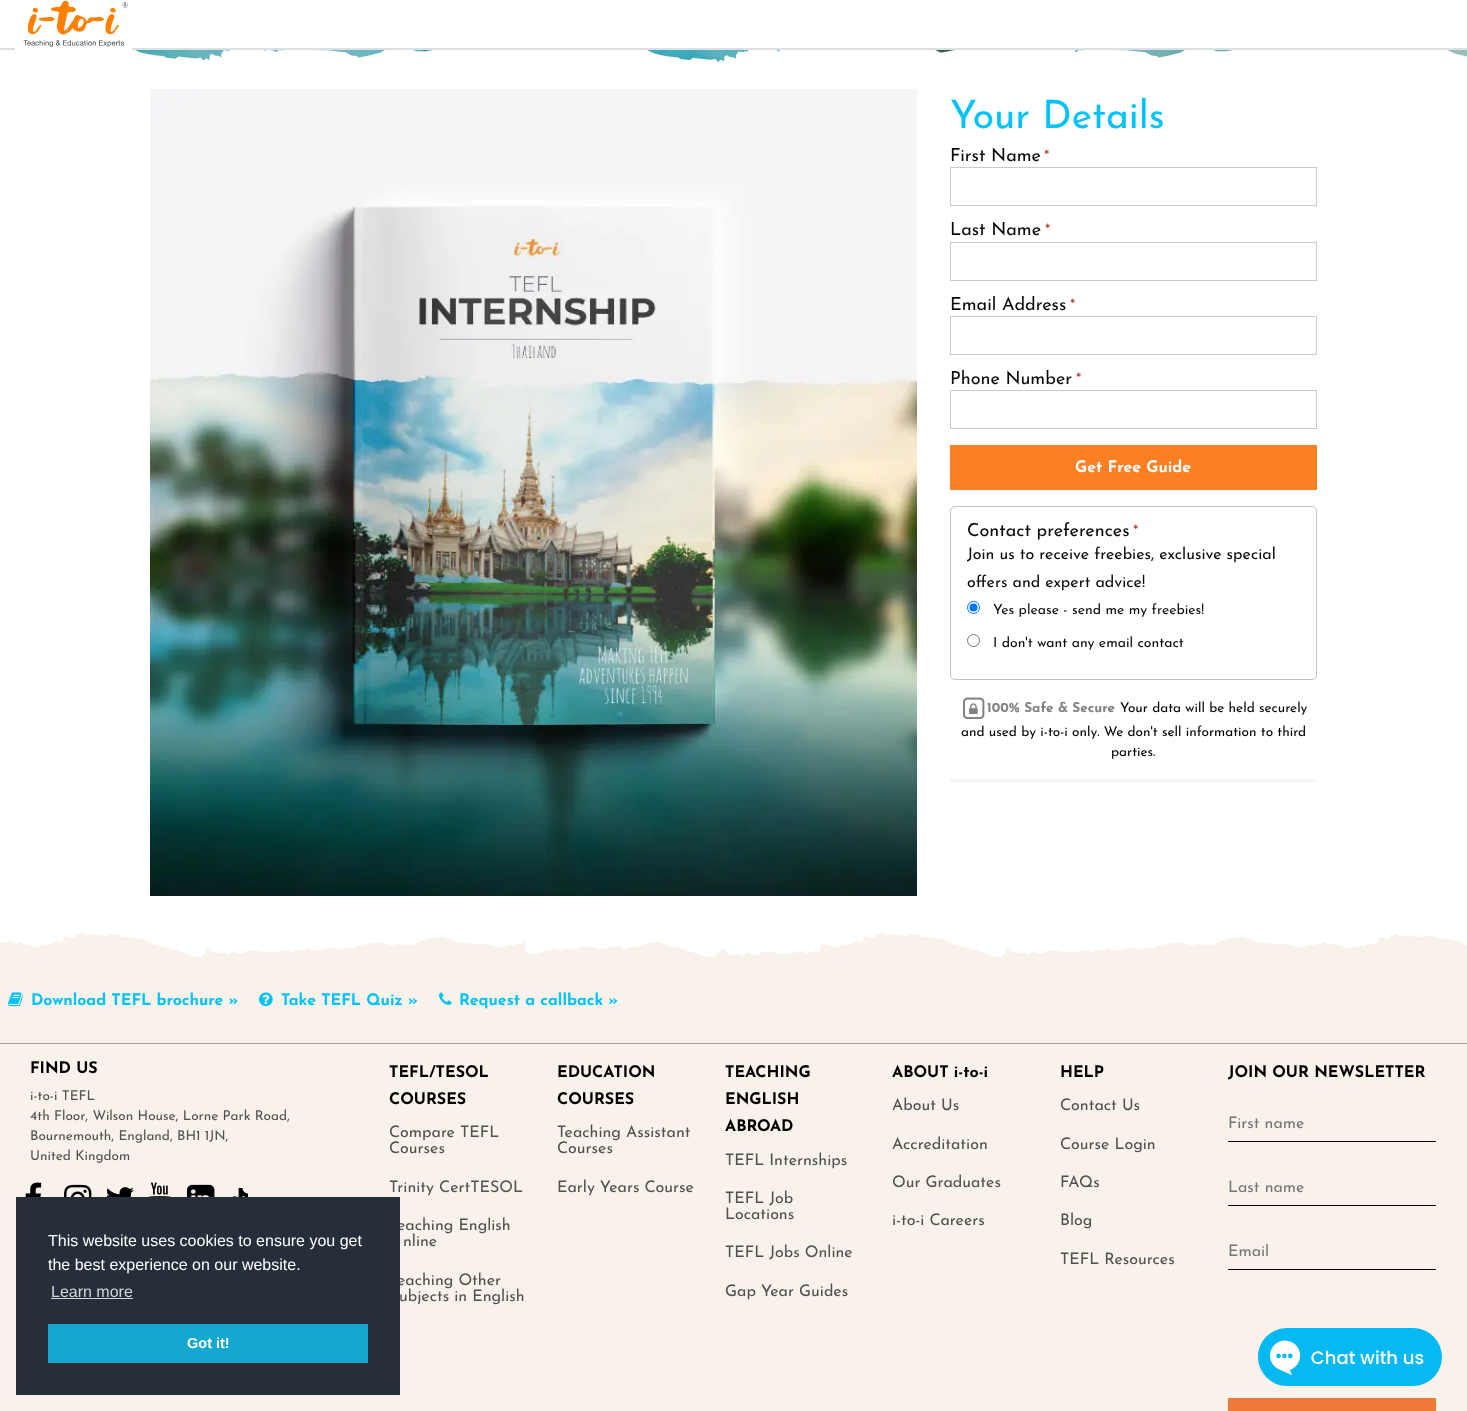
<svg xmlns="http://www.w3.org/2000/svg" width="1467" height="1411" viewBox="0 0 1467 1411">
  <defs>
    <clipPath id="clip1"><rect x="1228" y="1244" width="208" height="16"/></clipPath>
  </defs>
  <rect width="100%" height="100%" fill="rgb(255,255,255)"/>
  <rect x="0" y="48" width="1467" height="2" fill="rgb(219,224,228)"/>
  <image x="135" y="50" width="1332" height="12" href="pic2.png"/>
  <image x="0" y="50" width="1467" height="23" href="pic3.png"/>
  <image x="15" y="0" width="117" height="53" href="pic1.png"/>
  <image x="150" y="89" width="767" height="807" href="pic4.png"/>
  <text x="950" y="128" font-family="Josefin Sans" font-size="39" fill="rgb(3,195,246)">Your Details</text>
  <text x="950" y="161" font-family="Josefin Sans" font-size="18" fill="rgb(10,10,10)">First Name</text>
  <text x="1044" y="161" font-family="Josefin Sans" font-size="16" fill="rgb(187,66,66)">*</text>
  <rect x="950.5" y="167.5" width="366" height="38" fill="none" stroke="rgb(202,202,202)"/>
  <text x="950" y="235" font-family="Josefin Sans" font-size="18" fill="rgb(10,10,10)">Last Name</text>
  <text x="1045" y="235" font-family="Josefin Sans" font-size="16" fill="rgb(187,66,66)">*</text>
  <rect x="950.5" y="242.5" width="366" height="38" fill="none" stroke="rgb(202,202,202)"/>
  <text x="950" y="310" font-family="Josefin Sans" font-size="18" fill="rgb(10,10,10)">Email Address</text>
  <text x="1070" y="310" font-family="Josefin Sans" font-size="16" fill="rgb(187,66,66)">*</text>
  <rect x="950.5" y="316.5" width="366" height="38" fill="none" stroke="rgb(202,202,202)"/>
  <text x="950" y="384" font-family="Josefin Sans" font-size="18" fill="rgb(10,10,10)">Phone Number</text>
  <text x="1076" y="384" font-family="Josefin Sans" font-size="16" fill="rgb(187,66,66)">*</text>
  <rect x="950.5" y="390.5" width="366" height="38" fill="none" stroke="rgb(202,202,202)"/>
  <rect x="950" y="445" width="367" height="45" fill="rgb(252,127,36)"/>
  <text x="1075" y="472" font-family="Josefin Sans" font-size="16" font-weight="bold" fill="rgb(255,255,255)">Get Free Guide</text>
  <rect x="950.5" y="506.5" width="366" height="173" rx="4.5" fill="none" stroke="rgb(194,194,194)"/>
  <text x="967" y="536" font-family="Josefin Sans" font-size="18" fill="rgb(10,10,10)">Contact preferences</text>
  <text x="1133" y="536" font-family="Josefin Sans" font-size="16" fill="rgb(187,66,66)">*</text>
  <g font-family="Josefin Sans" font-size="16" fill="rgb(10,10,10)">
    <text>
      <tspan x="967" y="559">Join us to receive freebies, exclusive special</tspan>
      <tspan x="967" y="587">offers and expert advice!</tspan>
    </text>
  </g>
  <circle cx="973.5" cy="607.5" r="6" fill="none" stroke="rgb(0,117,255)"/>
  <circle cx="973.5" cy="607.5" r="4" fill="rgb(0,117,255)"/>
  <text x="993" y="614" font-family="Josefin Sans" font-size="14" fill="rgb(10,10,10)">Yes please - send me my freebies!</text>
  <circle cx="973.5" cy="640.5" r="6" fill="none" stroke="rgb(118,118,118)"/>
  <text x="993" y="647" font-family="Josefin Sans" font-size="14" fill="rgb(10,10,10)">I don't want any email contact</text>
  <rect x="950" y="779" width="367" height="3" fill="rgb(246,246,246)"/>
  <image x="963" y="697" width="22" height="22" href="pic5.png"/>
  <image x="969" y="703" width="9" height="11" href="pic6.png"/>
  <text x="987" y="712" font-family="Josefin Sans" font-size="13.6" font-weight="bold" fill="rgb(130,129,129)">100% Safe &amp; Secure</text>
  <g font-family="Josefin Sans" font-size="13.6" fill="rgb(0,0,0)">
    <text x="1120" y="712">Your data will be held securely</text>
    <text x="961" y="736">and used by i-to-i only. We don't sell information to third</text>
    <text x="1111" y="756">parties.</text>
  </g>
  <rect x="0" y="912" width="1467" height="499" fill="rgb(249,242,235)"/>
  <image x="0" y="912" width="1467" height="45" href="pic7.png"/>
  <rect x="0" y="1043" width="1467" height="1" fill="rgb(162,161,161)"/>
  <image x="8" y="992" width="15" height="15" href="pic8.png"/>
  <text x="31" y="1005" font-family="Josefin Sans" font-size="16" font-weight="bold" fill="rgb(3,195,246)">Download TEFL brochure »</text>
  <image x="259" y="992" width="14" height="15" href="pic9.png"/>
  <text x="281" y="1005" font-family="Josefin Sans" font-size="16" font-weight="bold" fill="rgb(3,195,246)">Take TEFL Quiz »</text>
  <image x="439" y="992" width="13" height="13" href="pic10.png"/>
  <text x="459" y="1005" font-family="Josefin Sans" font-size="16" font-weight="bold" fill="rgb(3,195,246)">Request a callback »</text>
  <text x="30" y="1073" font-family="Josefin Sans" font-size="16" font-weight="bold" fill="rgb(0,0,0)">FIND US</text>
  <g font-family="Josefin Sans" font-size="13.6" fill="rgb(80,80,80)">
    <text>
      <tspan x="30" y="1100">i-to-i TEFL</tspan>
      <tspan x="30" y="1120">4th Floor, Wilson House, Lorne Park Road,</tspan>
      <tspan x="30" y="1140">Bournemouth, England, BH1 1JN,</tspan>
      <tspan x="30" y="1160">United Kingdom</tspan>
    </text>
  </g>
  <image x="25" y="1182" width="17" height="15" href="pic11.png"/>
  <image x="64" y="1184" width="28" height="13" href="pic12.png"/>
  <image x="106" y="1187" width="28" height="10" href="pic13.png"/>
  <image x="148" y="1182" width="23" height="15" href="pic14.png"/>
  <image x="187" y="1184" width="28" height="13" href="pic15.png"/>
  <image x="232" y="1188" width="16" height="9" href="pic16.png"/>
  <g font-family="Josefin Sans" font-size="16" font-weight="bold" fill="rgb(0,0,0)">
    <text>
      <tspan x="389" y="1077">TEFL/TESOL</tspan>
      <tspan x="389" y="1104">COURSES</tspan>
    </text>
  </g>
  <g font-family="Josefin Sans" font-size="16" fill="rgb(80,80,80)">
    <text>
      <tspan x="389" y="1137">Compare TEFL</tspan>
      <tspan x="389" y="1153">Courses</tspan>
    </text>
    <text x="389" y="1192">Trinity CertTESOL</text>
    <text x="397" y="1230">eaching English</text>
    <text x="403" y="1246">nline</text>
    <text x="397" y="1285">eaching Other</text>
    <text x="399" y="1301">ubjects in English</text>
  </g>
  <g font-family="Josefin Sans" font-size="16" font-weight="bold" fill="rgb(0,0,0)">
    <text>
      <tspan x="557" y="1077">EDUCATION</tspan>
      <tspan x="557" y="1104">COURSES</tspan>
    </text>
  </g>
  <g font-family="Josefin Sans" font-size="16" fill="rgb(80,80,80)">
    <text>
      <tspan x="557" y="1137">Teaching Assistant</tspan>
      <tspan x="557" y="1153">Courses</tspan>
    </text>
    <text x="557" y="1192">Early Years Course</text>
  </g>
  <g font-family="Josefin Sans" font-size="16" font-weight="bold" fill="rgb(0,0,0)">
    <text>
      <tspan x="725" y="1077">TEACHING</tspan>
      <tspan x="725" y="1104">ENGLISH</tspan>
      <tspan x="725" y="1131">ABROAD</tspan>
    </text>
  </g>
  <g font-family="Josefin Sans" font-size="16" fill="rgb(80,80,80)">
    <text x="725" y="1165">TEFL Internships</text>
    <text>
      <tspan x="725" y="1203">TEFL Job</tspan>
      <tspan x="725" y="1219">Locations</tspan>
    </text>
    <text x="725" y="1257">TEFL Jobs Online</text>
    <text x="725" y="1296">Gap Year Guides</text>
  </g>
  <text x="892" y="1077" font-family="Josefin Sans" font-size="16" font-weight="bold" fill="rgb(0,0,0)">ABOUT i-to-i</text>
  <g font-family="Josefin Sans" font-size="16" fill="rgb(80,80,80)">
    <text x="892" y="1110">About Us</text>
    <text x="892" y="1149">Accreditation</text>
    <text x="892" y="1187">Our Graduates</text>
    <text x="892" y="1225">i-to-i Careers</text>
  </g>
  <text x="1060" y="1077" font-family="Josefin Sans" font-size="16" font-weight="bold" fill="rgb(0,0,0)">HELP</text>
  <g font-family="Josefin Sans" font-size="16" fill="rgb(80,80,80)">
    <text x="1060" y="1110">Contact Us</text>
    <text x="1060" y="1149">Course Login</text>
    <text x="1060" y="1187">FAQs</text>
    <text x="1060" y="1225">Blog</text>
    <text x="1060" y="1264">TEFL Resources</text>
  </g>
  <text x="1228" y="1077" font-family="Josefin Sans" font-size="16" font-weight="bold" fill="rgb(0,0,0)">JOIN OUR NEWSLETTER</text>
  <rect x="1228" y="1141" width="208" height="1" fill="rgb(0,0,0)"/>
  <text x="1228" y="1128" font-family="Josefin Sans" font-size="16" fill="rgb(117,117,117)">First name</text>
  <rect x="1228" y="1205" width="208" height="1" fill="rgb(0,0,0)"/>
  <text x="1228" y="1192" font-family="Josefin Sans" font-size="16" fill="rgb(117,117,117)">Last name</text>
  <rect x="1228" y="1269" width="208" height="1" fill="rgb(0,0,0)"/>
  <g clip-path="url(#clip1)">
    <text x="1228" y="1256" font-family="Josefin Sans" font-size="16" fill="rgb(117,117,117)">Email</text>
  </g>
  <rect x="1228" y="1398" width="208" height="13" fill="rgb(239,121,57)"/>
  <rect x="16" y="1197" width="384" height="198" fill="rgb(37,46,57)"/>
  <g font-family="Liberation Sans" font-size="16" fill="rgb(255,255,255)">
    <text>
      <tspan x="48" y="1246">This website uses cookies to ensure you get</tspan>
      <tspan x="48" y="1270">the best experience on our website.</tspan>
    </text>
  </g>
  <text x="51" y="1297" font-family="Liberation Sans" font-size="16" fill="rgb(211,213,215)">Learn more</text>
  <rect x="51" y="1298" width="82" height="1" fill="rgb(211,213,215)"/>
  <rect x="48" y="1324" width="320" height="39" fill="rgb(20,167,208)"/>
  <text x="187" y="1348" font-family="Liberation Sans" font-size="14.5" font-weight="bold" fill="rgb(255,255,255)">Got it!</text>
  <image x="1258" y="1328" width="184" height="58" href="pic17.png"/>
</svg>
